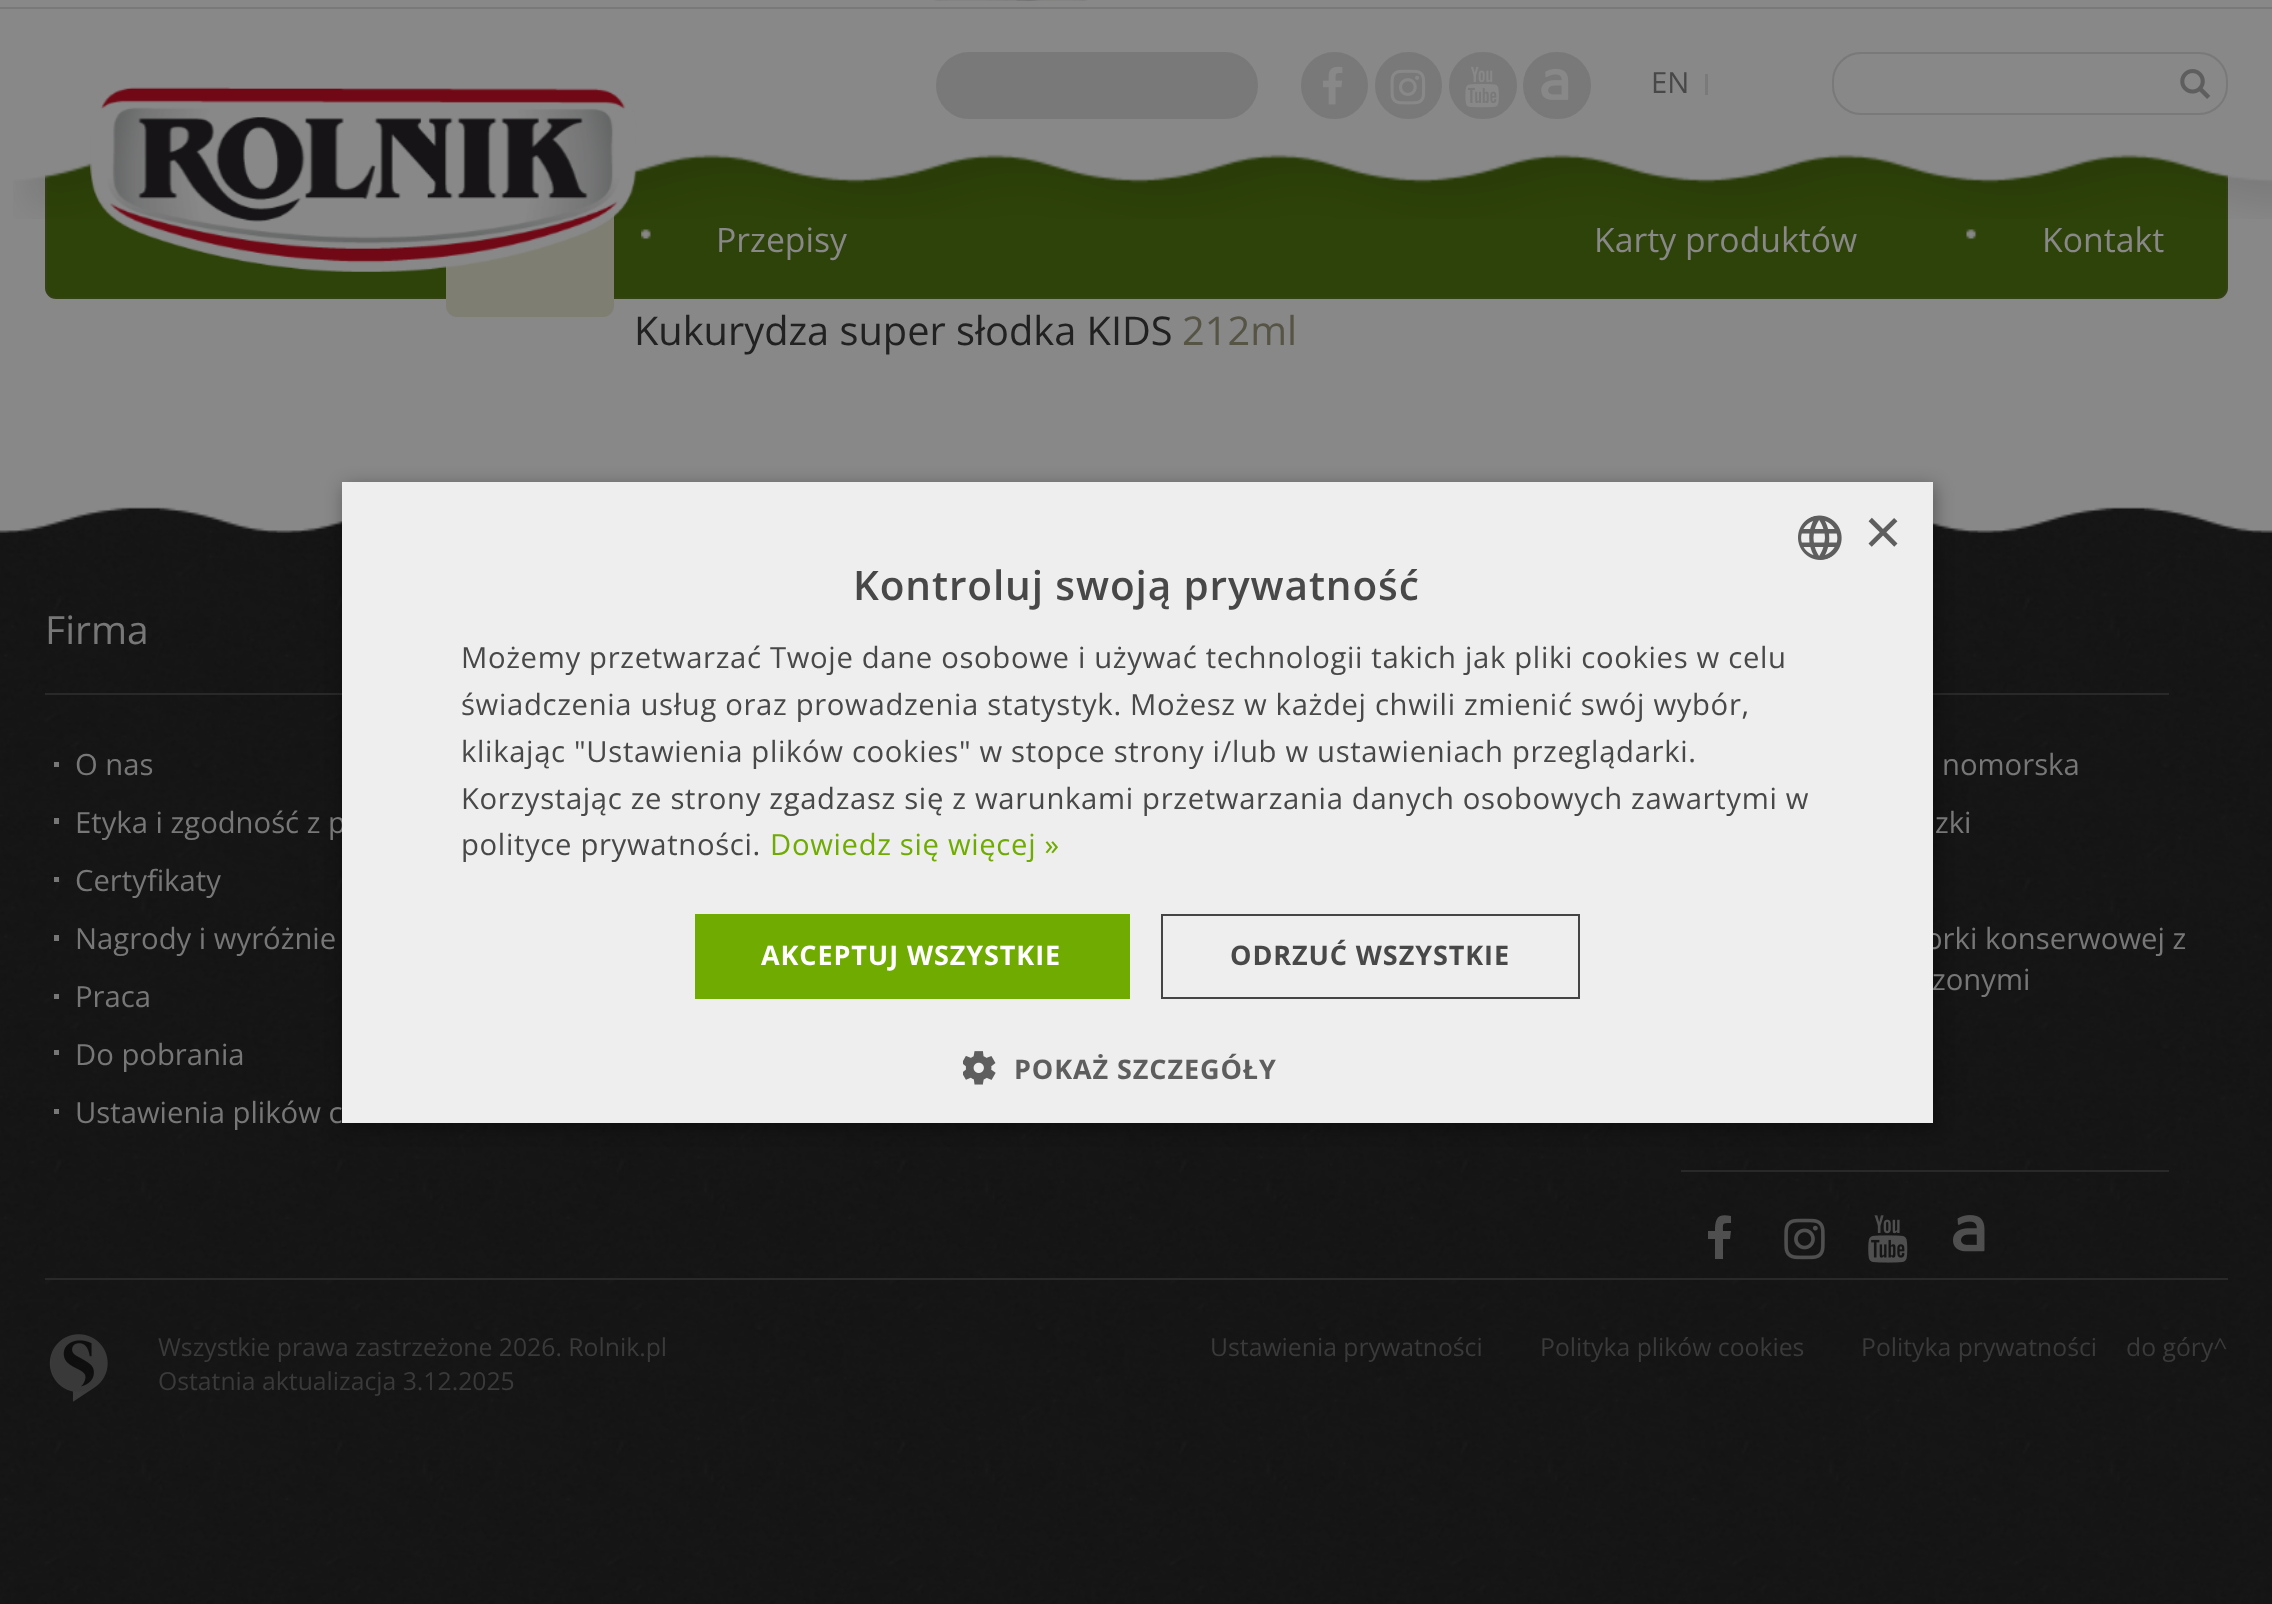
<svg xmlns="http://www.w3.org/2000/svg" width="2272" height="1604" viewBox="0 0 2272 1604">
  <rect width="100%" height="100%" fill="rgb(136,136,136)"/>
  <rect x="46" y="147" width="2181" height="151" rx="10" fill="rgb(46,67,9)" stroke="rgb(52,67,22)" stroke-width="2"/>
  <path d="M446 149H614V306C614 312 609 317 603 317H457C451 317 446 312 446 306Z" fill="rgb(127,126,115)"/>
  <image x="933" y="0" width="155" height="1" href="pic10.png"/>
  <image x="13" y="0" width="2259" height="219" href="pic1.png"/>
  <rect x="0" y="7" width="2272" height="2" fill="rgb(121,121,121)"/>
  <rect x="937" y="53" width="320" height="65" rx="32.5" fill="rgb(121,121,121)" stroke="rgb(121,121,121)" stroke-width="2"/>
  <circle cx="1334.5" cy="85.5" r="32.5" fill="rgb(121,121,121)" stroke="rgb(121,121,121)" stroke-width="2"/>
  <image x="1323" y="66" width="20" height="39" href="pic2.png"/>
  <circle cx="1408.5" cy="85.5" r="32.5" fill="rgb(121,121,121)" stroke="rgb(121,121,121)" stroke-width="2"/>
  <image x="1390" y="69" width="36" height="36" href="pic3.png"/>
  <rect x="1450" y="53" width="66" height="65" rx="32.5" fill="rgb(121,121,121)" stroke="rgb(121,121,121)" stroke-width="2"/>
  <image x="1465" y="66" width="34" height="42" href="pic4.png"/>
  <rect x="1524" y="53" width="66" height="65" rx="32.5" fill="rgb(121,121,121)" stroke="rgb(121,121,121)" stroke-width="2"/>
  <image x="1541" y="68" width="28" height="32" href="pic5.png"/>
  <rect x="1705" y="74" width="3" height="21" fill="rgb(122,122,122)"/>
  <text x="1651" y="93" font-family="Open Sans" font-size="29.25" fill="rgb(72,72,72)">EN</text>
  <rect x="1833" y="53" width="394" height="61" rx="28" fill="none" stroke="rgb(121,121,121)" stroke-width="2"/>
  <image x="2180" y="69" width="31" height="30" href="pic6.png"/>
  <image x="90" y="87" width="547" height="185" href="pic7.png"/>
  <image x="641" y="229" width="10" height="11" href="pic8.png"/>
  <g font-family="Open Sans" font-size="33.75" fill="rgb(136,136,136)">
    <text x="716" y="252">Przepisy</text>
    <text x="1594" y="252">Karty produktów</text>
  </g>
  <image x="1966" y="229" width="11" height="11" href="pic9.png"/>
  <text x="2042" y="252" font-family="Open Sans" font-size="33.75" fill="rgb(136,136,136)">Kontakt</text>
  <text x="634" y="345" font-family="Open Sans" font-size="39.75" fill="rgb(33,33,33)">Kukurydza super słodka KIDS</text>
  <text x="1182" y="345" font-family="Open Sans" font-size="39.75" fill="rgb(86,84,69)">212ml</text>
  <image x="0" y="507" width="2272" height="26" href="pic11.png"/>
  <image x="0" y="533" width="2272" height="1071" href="pic14.png"/>
  <rect x="45" y="693" width="297" height="2" fill="rgb(41,41,41)"/>
  <rect x="1933" y="693" width="236" height="2" fill="rgb(41,41,41)"/>
  <rect x="344" y="486" width="1591" height="641" fill="rgba(0,0,0,0.35)" filter="blur(9px)"/>
  <g font-family="Open Sans" font-size="29.25" fill="rgb(119,119,119)">
    <text x="75" y="833">Etyka i zgodność z p</text>
    <text x="1925" y="949">orki konserwowej z</text>
  </g>
  <rect x="342" y="482" width="1591" height="641" fill="rgb(238,238,238)"/>
  <image x="1798" y="515" width="44" height="45" href="pic12.png"/>
  <text x="1864" y="554" font-family="Liberation Sans" font-size="65" fill="rgb(94,94,94)">×</text>
  <text x="853" y="600" font-family="Open Sans" font-size="40.5" font-weight="600" letter-spacing="0.9" fill="rgb(72,72,72)">Kontroluj swoją prywatność</text>
  <g font-family="Open Sans" font-size="29.25" letter-spacing="0.67" fill="rgb(72,72,72)">
    <text>
      <tspan x="461" y="668">Możemy przetwarzać Twoje dane osobowe i używać technologii takich jak pliki cookies w celu</tspan>
      <tspan x="461" y="715">świadczenia usług oraz prowadzenia statystyk. Możesz w każdej chwili zmienić swój wybór,</tspan>
      <tspan x="461" y="762">klikając "Ustawienia plików cookies" w stopce strony i/lub w ustawieniach przeglądarki.</tspan>
      <tspan x="461" y="809">Korzystając ze strony zgadzasz się z warunkami przetwarzania danych osobowych zawartymi w</tspan>
      <tspan x="461" y="855">polityce prywatności.</tspan>
    </text>
  </g>
  <text x="770" y="855" font-family="Open Sans" font-size="29.25" letter-spacing="0.67" fill="rgb(111,171,0)">Dowiedz się więcej »</text>
  <rect x="695" y="914" width="435" height="85" fill="rgb(111,171,0)"/>
  <text x="761" y="965" font-family="Open Sans" font-size="27" font-weight="bold" letter-spacing="0.9" fill="rgb(255,255,255)">AKCEPTUJ WSZYSTKIE</text>
  <rect x="1162" y="915" width="417" height="83" fill="none" stroke="rgb(68,68,68)" stroke-width="2"/>
  <text x="1230" y="965" font-family="Open Sans" font-size="27" font-weight="bold" letter-spacing="0.9" fill="rgb(72,72,72)">ODRZUĆ WSZYSTKIE</text>
  <image x="963" y="1051" width="33" height="34" href="pic13.png"/>
  <text x="1014" y="1079" font-family="Open Sans" font-size="27" font-weight="bold" letter-spacing="0.9" fill="rgb(94,94,94)">POKAŻ SZCZEGÓŁY</text>
  <text x="45" y="644" font-family="Open Sans" font-size="39" fill="rgb(119,119,119)">Firma</text>
  <rect x="54" y="762" width="5" height="5" fill="rgb(119,119,119)"/>
  <text x="75" y="775" font-family="Open Sans" font-size="29.25" fill="rgb(119,119,119)">O nas</text>
  <rect x="54" y="818" width="5" height="6" fill="rgb(119,119,119)"/>
  <rect x="54" y="877" width="5" height="5" fill="rgb(119,119,119)"/>
  <text x="75" y="891" font-family="Open Sans" font-size="29.25" fill="rgb(119,119,119)">Certyfikaty</text>
  <rect x="54" y="935" width="5" height="6" fill="rgb(119,119,119)"/>
  <text x="75" y="949" font-family="Open Sans" font-size="29.25" fill="rgb(119,119,119)">Nagrody i wyróżnie</text>
  <rect x="54" y="994" width="5" height="5" fill="rgb(119,119,119)"/>
  <text x="75" y="1007" font-family="Open Sans" font-size="29.25" fill="rgb(119,119,119)">Praca</text>
  <rect x="54" y="1050" width="5" height="5" fill="rgb(119,119,119)"/>
  <text x="75" y="1065" font-family="Open Sans" font-size="29.25" fill="rgb(119,119,119)">Do pobrania</text>
  <rect x="54" y="1109" width="5" height="5" fill="rgb(119,119,119)"/>
  <g font-family="Open Sans" font-size="29.25" fill="rgb(119,119,119)">
    <text x="75" y="1123">Ustawienia plików c</text>
    <text x="1942" y="775">nomorska</text>
    <text x="1935" y="833">zki</text>
    <text x="1932" y="990">zonymi</text>
  </g>
  <rect x="1681" y="1170" width="488" height="2" fill="rgb(41,41,41)"/>
  <path d="M1731 1216V1223C1722 1223 1723 1223 1723 1231H1731L1730 1239H1723V1259H1715V1239H1708V1231H1715C1715 1219 1717 1213 1731 1216Z" fill="rgb(79,79,79)"/>
  <image x="1784" y="1218" width="41" height="42" href="pic15.png"/>
  <image x="1868" y="1215" width="40" height="48" href="pic16.png"/>
  <image x="1953" y="1215" width="32" height="37" href="pic17.png"/>
  <rect x="45" y="1278" width="2183" height="2" fill="rgb(41,41,41)"/>
  <image x="49" y="1334" width="59" height="68" href="pic18.png"/>
  <g font-family="Open Sans" font-size="24.75" fill="rgb(59,58,58)">
    <text>
      <tspan x="158" y="1356">Wszystkie prawa zastrzeżone 2026. Rolnik.pl</tspan>
      <tspan x="158" y="1390">Ostatnia aktualizacja 3.12.2025</tspan>
    </text>
    <text x="1210" y="1356">Ustawienia prywatności</text>
    <text x="1540" y="1356">Polityka plików cookies</text>
    <text x="1861" y="1356">Polityka prywatności</text>
    <text x="2126" y="1356">do góry^</text>
  </g>
</svg>
